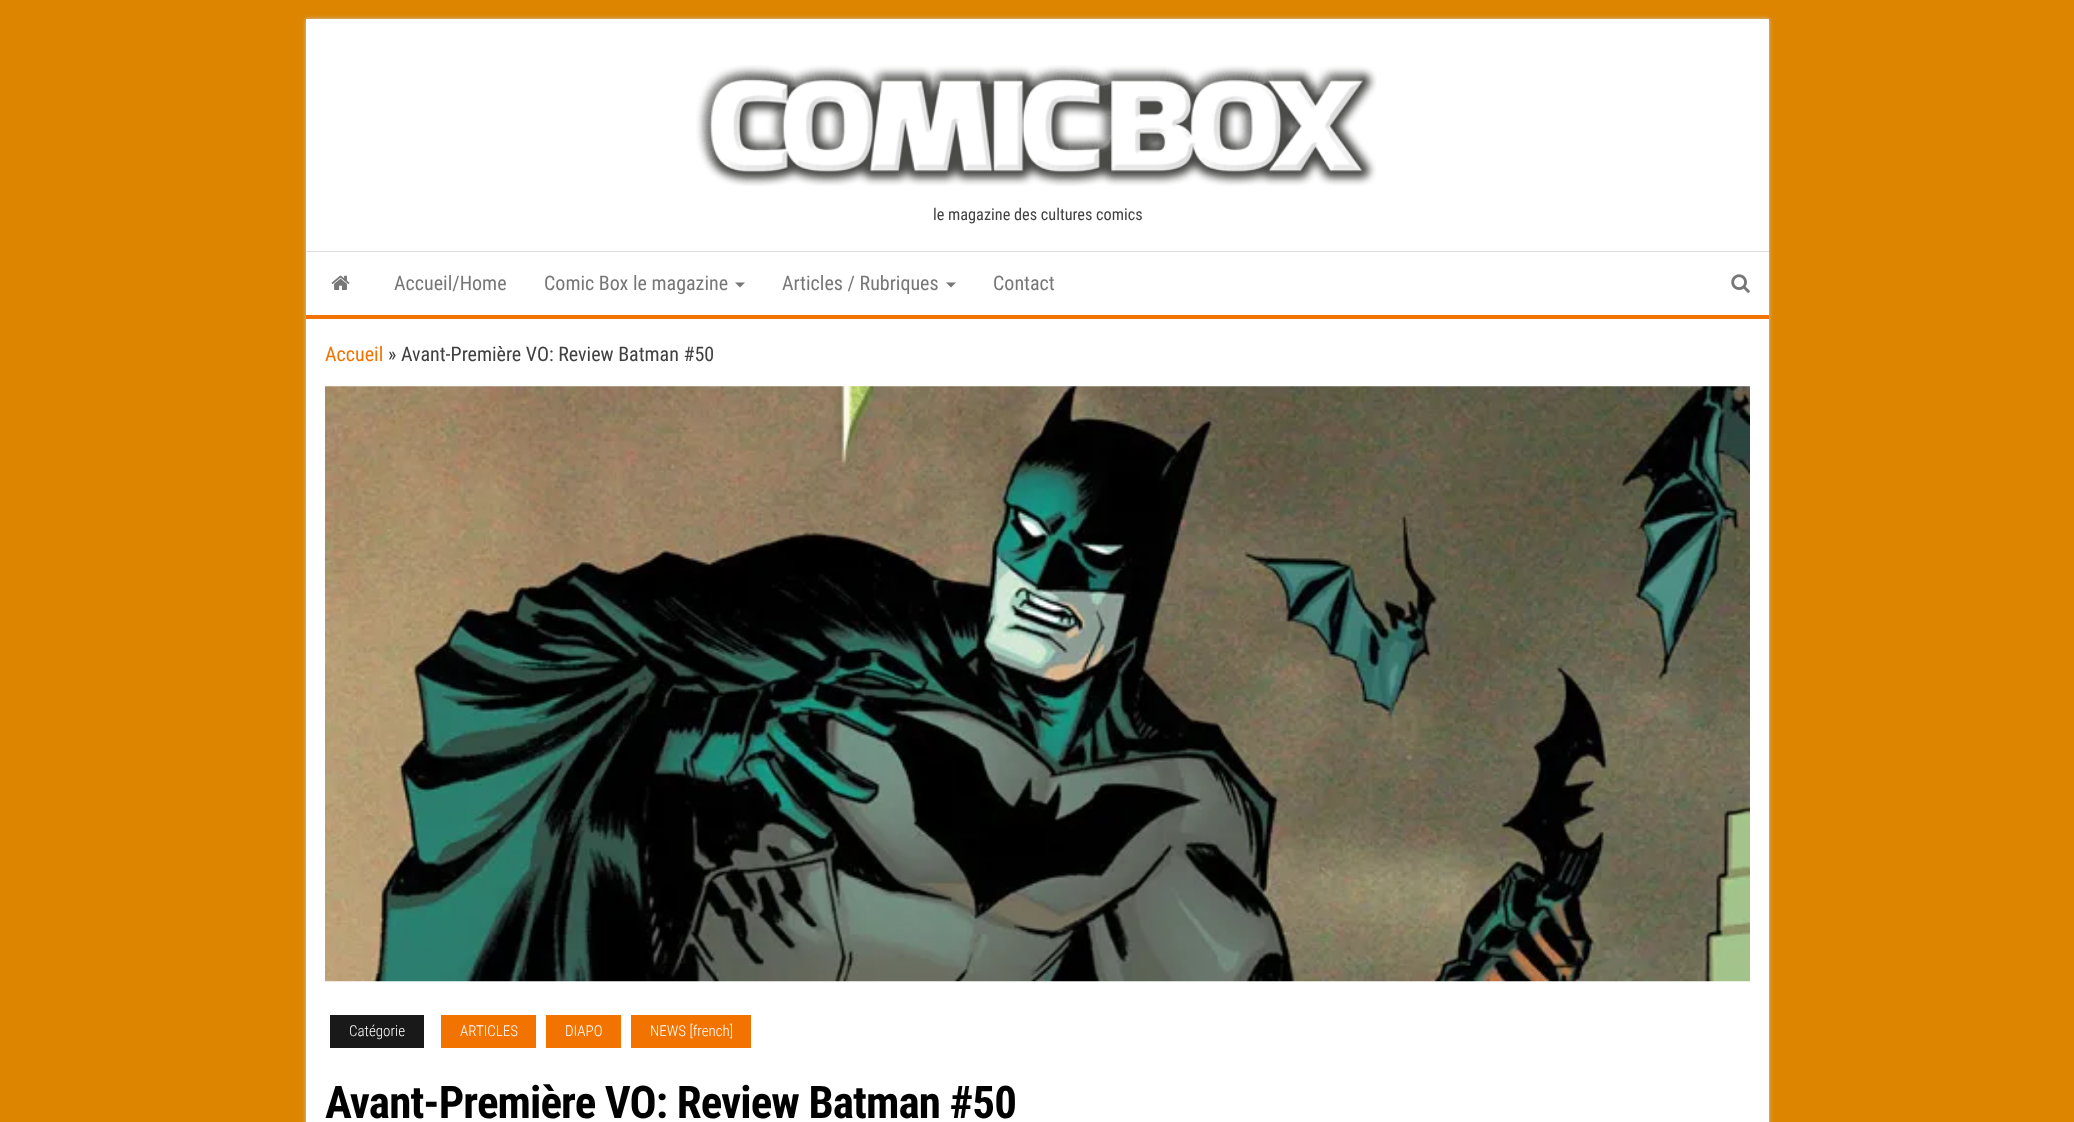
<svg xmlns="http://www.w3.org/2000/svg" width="2074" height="1122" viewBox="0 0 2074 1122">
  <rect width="100%" height="100%" fill="rgb(221,133,0)"/>
  <rect x="306" y="19" width="1463" height="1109" fill="rgb(202,202,202)" filter="blur(2px)"/>
  <rect x="306" y="19" width="1463" height="232" fill="rgb(255,255,255)"/>
  <image x="696" y="65" width="681" height="121" href="pic1.png"/>
  <text x="933" y="220" font-family="Roboto Condensed" font-size="16.25" fill="rgb(64,64,64)">le magazine des cultures comics</text>
  <rect x="306" y="252" width="1463" height="63" fill="rgb(255,255,255)"/>
  <rect x="306" y="251" width="1463" height="1" fill="rgb(221,221,221)"/>
  <rect x="306" y="315" width="1463" height="4" fill="rgb(242,115,0)"/>
  <image x="331" y="275" width="19" height="15" href="pic2.png"/>
  <g font-family="Roboto Condensed" font-size="20" fill="rgb(119,119,119)">
    <text x="394" y="290">Accueil/Home</text>
    <text x="544" y="290">Comic Box le magazine</text>
  </g>
  <path d="M735 282.5H745L740 287.5Z" fill="rgb(119,119,119)"/>
  <text x="782" y="290" font-family="Roboto Condensed" font-size="20" fill="rgb(119,119,119)">Articles / Rubriques</text>
  <path d="M946 282.5H956L951 287.5Z" fill="rgb(119,119,119)"/>
  <text x="993" y="290" font-family="Roboto Condensed" font-size="20" fill="rgb(119,119,119)">Contact</text>
  <image x="1731" y="274" width="19" height="19" href="pic3.png"/>
  <rect x="306" y="319" width="1463" height="803" fill="rgb(255,255,255)"/>
  <text x="325" y="361" font-family="Roboto Condensed" font-size="20" fill="rgb(242,115,0)">Accueil</text>
  <text x="388" y="361" font-family="Roboto Condensed" font-size="20" fill="rgb(64,64,64)">» Avant-Première VO: Review Batman #50</text>
  <image x="325" y="386" width="1425" height="596" href="pic4.png"/>
  <rect x="330" y="1015" width="94" height="33" fill="rgb(25,25,25)"/>
  <text x="349" y="1036" font-family="Roboto Condensed" font-size="15" font-weight="300" fill="rgb(255,255,255)">Catégorie</text>
  <rect x="441" y="1015" width="95" height="33" fill="rgb(242,115,0)"/>
  <text x="460" y="1036" font-family="Roboto Condensed" font-size="15" font-weight="300" fill="rgb(255,255,255)">ARTICLES</text>
  <rect x="546" y="1015" width="75" height="33" fill="rgb(242,115,0)"/>
  <text x="565" y="1036" font-family="Roboto Condensed" font-size="15" font-weight="300" fill="rgb(255,255,255)">DIAPO</text>
  <rect x="631" y="1015" width="120" height="33" fill="rgb(242,115,0)"/>
  <text x="650" y="1036" font-family="Roboto Condensed" font-size="15" font-weight="300" fill="rgb(255,255,255)">NEWS [french]</text>
  <text x="325" y="1118" font-family="Roboto Condensed" font-size="45" font-weight="bold" letter-spacing="-0.9" fill="rgb(0,0,0)">Avant-Première VO: Review Batman #50</text>
</svg>
